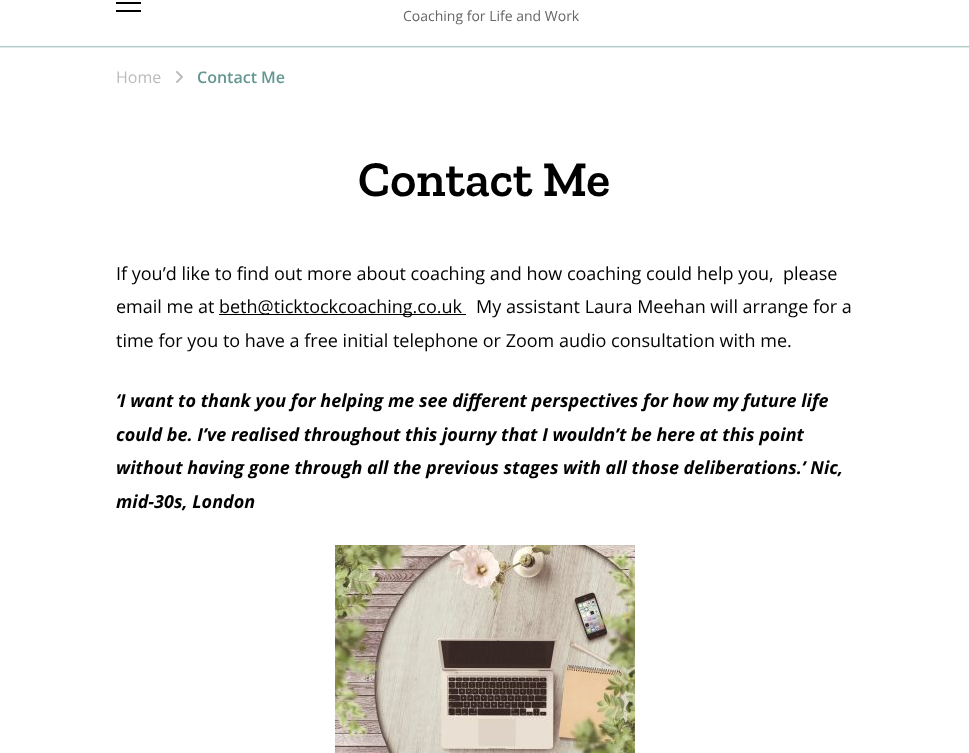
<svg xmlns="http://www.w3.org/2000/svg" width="969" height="753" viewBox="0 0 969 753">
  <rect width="100%" height="100%" fill="rgb(255,255,255)"/>
  <rect x="0" y="46" width="969" height="1" fill="rgb(177,203,201)"/>
  <rect x="116" y="2" width="25" height="2" fill="rgb(0,0,0)"/>
  <rect x="116" y="10" width="25" height="2" fill="rgb(0,0,0)"/>
  <text x="403" y="21" font-family="Open Sans" font-size="14" fill="rgb(102,102,102)">Coaching for Life and Work</text>
  <rect x="0" y="47" width="969" height="1" fill="rgb(224,234,233)"/>
  <text x="116" y="83" font-family="Open Sans" font-size="16" fill="rgb(187,187,187)">Home</text>
  <image x="176" y="71" width="7" height="12" href="pic1.png"/>
  <text x="197" y="83" font-family="Open Sans" font-size="16" font-weight="600" fill="rgb(99,151,146)">Contact Me</text>
  <text x="358" y="196" font-family="Zilla Slab" font-size="50" font-weight="600" fill="rgb(0,0,0)">Contact Me</text>
  <g font-family="Open Sans" font-size="18" fill="rgb(0,0,0)">
    <text xml:space="preserve"><tspan x="116" y="280">If you’d like to find out more about coaching and how coaching could help you,  please</tspan><tspan x="116" y="313">email me at</tspan></text>
  </g>
  <rect x="219" y="314" width="247" height="1" fill="rgb(0,0,0)"/>
  <g font-family="Open Sans" font-size="18" fill="rgb(0,0,0)">
    <text x="219" y="313">beth@ticktockcoaching.co.uk</text>
    <text x="476" y="313">My assistant Laura Meehan will arrange for a</text>
    <text x="116" y="347">time for you to have a free initial telephone or Zoom audio consultation with me.</text>
  </g>
  <g font-family="Open Sans" font-size="18" font-weight="bold" font-style="italic" fill="rgb(0,0,0)">
    <text>
      <tspan x="116" y="407">‘I want to thank you for helping me see different perspectives for how my future life</tspan>
      <tspan x="116" y="441">could be. I’ve realised throughout this journy that I wouldn’t be here at this point</tspan>
      <tspan x="116" y="474">without having gone through all the previous stages with all those deliberations.’ Nic,</tspan>
      <tspan x="116" y="508">mid-30s, London</tspan>
    </text>
  </g>
  <image x="335" y="545" width="300" height="208" href="pic2.png"/>
</svg>
